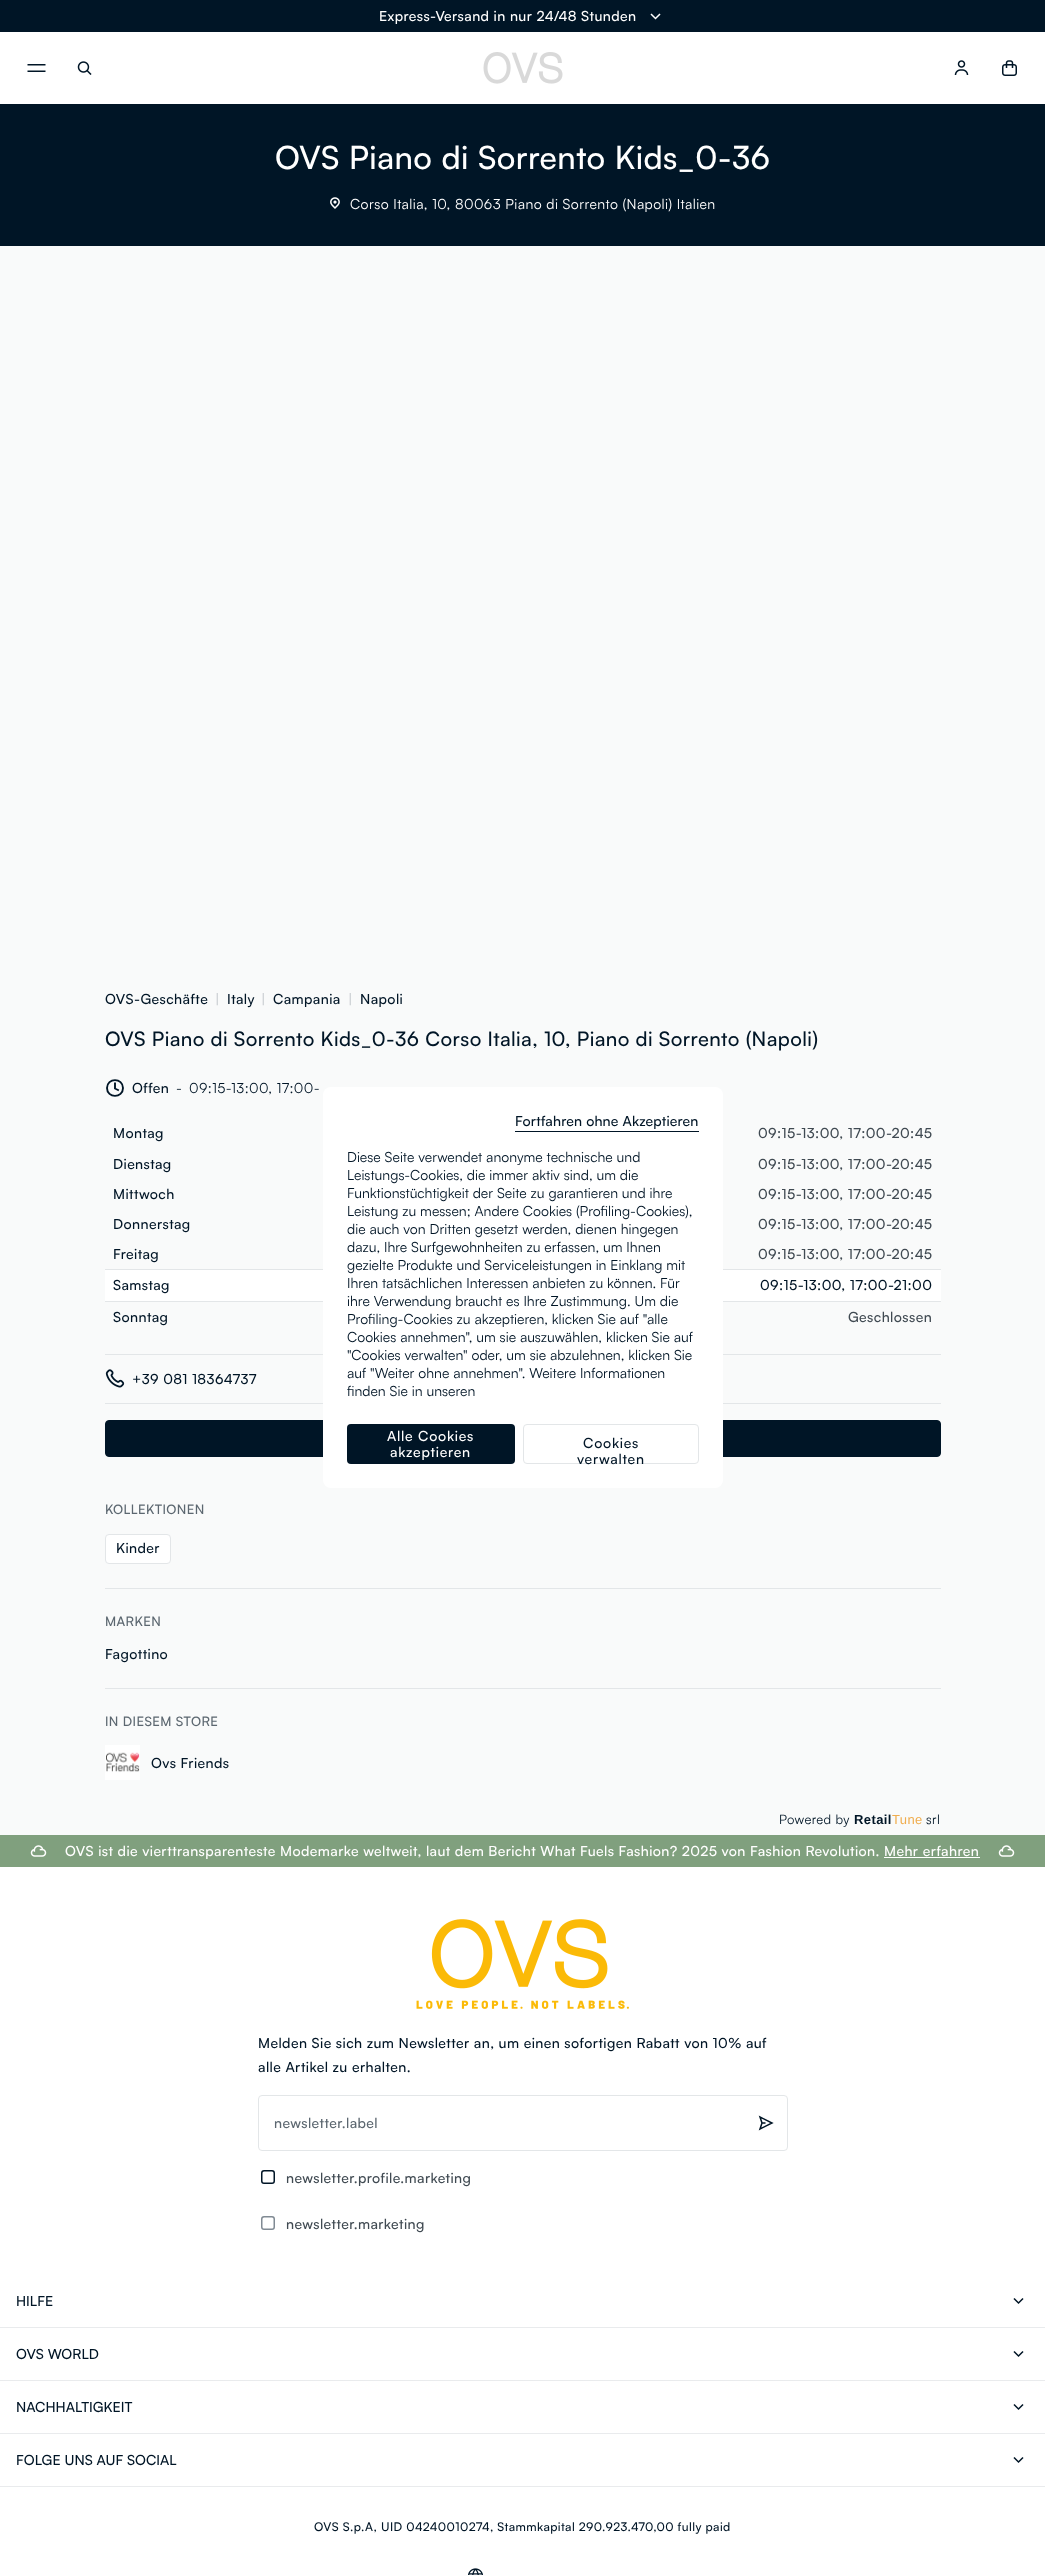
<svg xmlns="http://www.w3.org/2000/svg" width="1045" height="2575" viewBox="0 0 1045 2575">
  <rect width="100%" height="100%" fill="rgb(255,255,255)"/>
  <rect x="0" y="0" width="1045" height="32" fill="rgb(0,21,38)"/>
  <text x="379" y="21" font-family="Satoshi" font-size="14" font-weight="500" letter-spacing="0.4" fill="rgb(255,255,255)">Express-Versand in nur 24/48 Stunden</text>
  <path d="M651.5 14.5L655.5 18.5L659.5 14.5" fill="none" stroke="rgb(255,255,255)" stroke-width="1.5" stroke-linecap="square"/>
  <image x="483" y="52" width="80" height="32" href="pic1.png"/>
  <image x="27" y="64" width="19" height="8" href="pic2.png"/>
  <image x="77" y="61" width="15" height="14" href="pic3.png"/>
  <image x="954" y="60" width="15" height="15" href="pic4.png"/>
  <image x="1002" y="60" width="15" height="16" href="pic5.png"/>
  <rect x="0" y="246" width="1045" height="1589" fill="rgb(249,250,250)"/>
  <rect x="0" y="104" width="1045" height="142" fill="rgb(0,21,38)"/>
  <text x="275" y="169" font-family="Satoshi" font-size="32" font-weight="500" letter-spacing="0.4" fill="rgb(255,255,255)">OVS Piano di Sorrento Kids_0-36</text>
  <image x="330" y="197" width="10" height="12" href="pic6.png"/>
  <text x="350" y="209" font-family="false" font-size="14" letter-spacing="0.4" fill="rgb(255,255,255)">Corso Italia, 10, 80063 Piano di Sorrento (Napoli) Italien</text>
  <text x="105" y="1004" font-family="Satoshi" font-size="14" font-weight="500" letter-spacing="0.4" fill="rgb(0,21,38)">OVS-Geschäfte</text>
  <text x="215" y="1004" font-family="Satoshi" font-size="14" font-weight="500" letter-spacing="0.4" fill="rgb(199,204,208)">|</text>
  <text x="227" y="1004" font-family="Satoshi" font-size="14" font-weight="500" letter-spacing="0.4" fill="rgb(0,21,38)">Italy</text>
  <text x="261" y="1004" font-family="Satoshi" font-size="14" font-weight="500" letter-spacing="0.4" fill="rgb(199,204,208)">|</text>
  <text x="273" y="1004" font-family="Satoshi" font-size="14" font-weight="500" letter-spacing="0.4" fill="rgb(0,21,38)">Campania</text>
  <text x="348" y="1004" font-family="Satoshi" font-size="14" font-weight="500" letter-spacing="0.4" fill="rgb(199,204,208)">|</text>
  <text x="360" y="1004" font-family="Satoshi" font-size="14" font-weight="500" letter-spacing="0.4" fill="rgb(0,21,38)">Napoli</text>
  <text x="105" y="1046" font-family="Satoshi" font-size="20" font-weight="500" letter-spacing="0.4" fill="rgb(0,21,38)">OVS Piano di Sorrento Kids_0-36 Corso Italia, 10, Piano di Sorrento (Napoli)</text>
  <path d="M115 1083.5V1088.5L118 1090M123 1088C123 1098.5 107 1098.5 107 1088C107 1077.5 123 1077.5 123 1088Z" fill="none" stroke="rgb(0,21,38)" stroke-width="1.9" stroke-linecap="square"/>
  <text x="132" y="1093" font-family="Satoshi" font-size="14" font-weight="500" letter-spacing="0.4" fill="rgb(0,21,38)">Offen</text>
  <g font-family="false" font-size="14" letter-spacing="0.4" fill="rgb(0,21,38)">
    <text x="176" y="1093">-</text>
    <text x="189" y="1093">09:15-13:00, 17:00-</text>
  </g>
  <text x="113" y="1138" font-family="Satoshi" font-size="14" font-weight="500" letter-spacing="0.4" fill="rgb(0,21,38)">Montag</text>
  <text x="758" y="1138" font-family="Satoshi" font-size="14" font-weight="500" letter-spacing="0.4" fill="rgb(64,74,82)">09:15-13:00, 17:00-20:45</text>
  <text x="113" y="1169" font-family="Satoshi" font-size="14" font-weight="500" letter-spacing="0.4" fill="rgb(0,21,38)">Dienstag</text>
  <text x="758" y="1169" font-family="Satoshi" font-size="14" font-weight="500" letter-spacing="0.4" fill="rgb(64,74,82)">09:15-13:00, 17:00-20:45</text>
  <text x="113" y="1199" font-family="Satoshi" font-size="14" font-weight="500" letter-spacing="0.4" fill="rgb(0,21,38)">Mittwoch</text>
  <text x="758" y="1199" font-family="Satoshi" font-size="14" font-weight="500" letter-spacing="0.4" fill="rgb(64,74,82)">09:15-13:00, 17:00-20:45</text>
  <text x="113" y="1229" font-family="Satoshi" font-size="14" font-weight="500" letter-spacing="0.4" fill="rgb(0,21,38)">Donnerstag</text>
  <text x="758" y="1229" font-family="Satoshi" font-size="14" font-weight="500" letter-spacing="0.4" fill="rgb(64,74,82)">09:15-13:00, 17:00-20:45</text>
  <text x="113" y="1259" font-family="Satoshi" font-size="14" font-weight="500" letter-spacing="0.4" fill="rgb(0,21,38)">Freitag</text>
  <text x="758" y="1259" font-family="Satoshi" font-size="14" font-weight="500" letter-spacing="0.4" fill="rgb(64,74,82)">09:15-13:00, 17:00-20:45</text>
  <rect x="105" y="1270" width="836" height="31" fill="rgb(255,255,255)"/>
  <rect x="105" y="1269" width="836" height="1" fill="rgb(227,230,232)"/>
  <rect x="105" y="1301" width="836" height="1" fill="rgb(227,230,232)"/>
  <g font-family="Satoshi" font-size="14" font-weight="500" letter-spacing="0.4" fill="rgb(0,21,38)">
    <text x="113" y="1290">Samstag</text>
    <text x="760" y="1290">09:15-13:00, 17:00-21:00</text>
    <text x="113" y="1322">Sonntag</text>
  </g>
  <text x="848" y="1322" font-family="Satoshi" font-size="14" font-weight="500" letter-spacing="0.4" fill="rgb(64,74,82)">Geschlossen</text>
  <rect x="105" y="1354" width="836" height="1" fill="rgb(227,230,232)"/>
  <rect x="105" y="1403" width="836" height="1" fill="rgb(227,230,232)"/>
  <image x="105" y="1369" width="20" height="19" href="pic7.png"/>
  <text x="132" y="1384" font-family="Satoshi" font-size="14" font-weight="500" letter-spacing="0.4" fill="rgb(0,21,38)">+39 081 18364737</text>
  <rect x="105.5" y="1420.5" width="835" height="36" rx="3.5" fill="rgb(0,21,38)" stroke="rgb(0,21,38)"/>
  <rect x="105" y="1588" width="836" height="1" fill="rgb(227,230,232)"/>
  <text x="105" y="1514" font-family="Satoshi" font-size="13" font-weight="500" letter-spacing="0.4" fill="rgb(92,103,112)">KOLLEKTIONEN</text>
  <rect x="105.5" y="1534.5" width="65" height="29" rx="3.5" fill="rgb(255,255,255)" stroke="rgb(227,230,232)"/>
  <text x="116" y="1553" font-family="Satoshi" font-size="14" font-weight="500" letter-spacing="0.4" fill="rgb(0,21,38)">Kinder</text>
  <rect x="105" y="1688" width="836" height="1" fill="rgb(227,230,232)"/>
  <text x="105" y="1626" font-family="Satoshi" font-size="13" font-weight="500" letter-spacing="0.4" fill="rgb(92,103,112)">MARKEN</text>
  <text x="105" y="1659" font-family="Satoshi" font-size="14" font-weight="500" letter-spacing="0.4" fill="rgb(0,21,38)">Fagottino</text>
  <text x="105" y="1726" font-family="Satoshi" font-size="13" font-weight="500" letter-spacing="0.4" fill="rgb(92,103,112)">IN DIESEM STORE</text>
  <image x="105" y="1745" width="35" height="35" href="pic8.png"/>
  <text x="151" y="1768" font-family="Satoshi" font-size="14" font-weight="500" letter-spacing="0.4" fill="rgb(0,21,38)">Ovs Friends</text>
  <text x="779" y="1824" font-family="false" font-size="13" letter-spacing="0.4" fill="rgb(0,21,38)">Powered by</text>
  <text x="854" y="1824" font-family="Liberation Sans" font-size="13" font-weight="bold" letter-spacing="0.4" fill="rgb(0,21,38)">Retail</text>
  <text x="892" y="1824" font-family="Liberation Sans" font-size="13" letter-spacing="0.4" fill="rgb(240,173,78)">Tune</text>
  <text x="926" y="1824" font-family="false" font-size="13" letter-spacing="0.4" fill="rgb(0,21,38)">srl</text>
  <rect x="323" y="1087" width="400" height="401" rx="8" fill="rgb(255,255,255)"/>
  <rect x="515" y="1131" width="184" height="1" fill="rgb(0,21,38)"/>
  <text x="515" y="1126" font-family="Satoshi" font-size="14" font-weight="500" letter-spacing="0.15" fill="rgb(0,21,38)">Fortfahren ohne Akzeptieren</text>
  <g font-family="false" font-size="14" fill="rgb(0,21,38)">
    <text>
      <tspan x="347" y="1162">Diese Seite verwendet anonyme technische und</tspan>
      <tspan x="347" y="1180">Leistungs-Cookies, die immer aktiv sind, um die</tspan>
      <tspan x="347" y="1198">Funktionstüchtigkeit der Seite zu garantieren und ihre</tspan>
      <tspan x="347" y="1216">Leistung zu messen; Andere Cookies (Profiling-Cookies),</tspan>
      <tspan x="347" y="1234">die auch von Dritten gesetzt werden, dienen hingegen</tspan>
      <tspan x="347" y="1252">dazu, Ihre Surfgewohnheiten zu erfassen, um Ihnen</tspan>
      <tspan x="347" y="1270">gezielte Produkte und Serviceleistungen in Einklang mit</tspan>
      <tspan x="347" y="1288">Ihren tatsächlichen Interessen anbieten zu können. Für</tspan>
      <tspan x="347" y="1306">ihre Verwendung braucht es Ihre Zustimmung. Um die</tspan>
      <tspan x="347" y="1324">Profiling-Cookies zu akzeptieren, klicken Sie auf "alle</tspan>
      <tspan x="347" y="1342">Cookies annehmen", um sie auszuwählen, klicken Sie auf</tspan>
      <tspan x="347" y="1360">"Cookies verwalten" oder, um sie abzulehnen, klicken Sie</tspan>
      <tspan x="347" y="1378">auf "Weiter ohne annehmen". Weitere Informationen</tspan>
      <tspan x="347" y="1396">finden Sie in unseren</tspan>
    </text>
  </g>
  <rect x="347" y="1424" width="168" height="40" rx="4" fill="rgb(0,21,38)"/>
  <g font-family="Satoshi" font-size="14" font-weight="500" letter-spacing="0.75" fill="rgb(255,255,255)">
    <text x="387" y="1441">Alle Cookies</text>
    <text x="390" y="1457">akzeptieren</text>
  </g>
  <rect x="523.5" y="1424.5" width="175" height="39" rx="3.5" fill="none" stroke="rgb(227,230,232)"/>
  <g font-family="Satoshi" font-size="14" font-weight="500" letter-spacing="0.75" fill="rgb(0,21,38)">
    <text x="583" y="1448">Cookies</text>
    <text x="577" y="1464">verwalten</text>
  </g>
  <rect x="0" y="1835" width="1045" height="32" fill="rgb(128,160,126)"/>
  <image x="30" y="1845" width="17" height="12" href="pic9.png"/>
  <text x="65" y="1856" font-family="Satoshi" font-size="14" font-weight="500" letter-spacing="0.4" fill="rgb(255,255,255)">OVS ist die vierttransparenteste Modemarke weltweit, laut dem Bericht What Fuels Fashion? 2025 von Fashion Revolution. Mehr erfahren</text>
  <rect x="884" y="1857" width="96" height="1" fill="rgb(255,255,255)"/>
  <image x="998" y="1845" width="17" height="12" href="pic9.png"/>
  <image x="416" y="1919" width="213" height="90" href="pic10.png"/>
  <g font-family="Satoshi" font-size="14" font-weight="500" letter-spacing="0.4" fill="rgb(0,21,38)">
    <text>
      <tspan x="258" y="2048">Melden Sie sich zum Newsletter an, um einen sofortigen Rabatt von 10% auf</tspan>
      <tspan x="258" y="2072">alle Artikel zu erhalten.</tspan>
    </text>
  </g>
  <rect x="258.5" y="2095.5" width="529" height="55" rx="3.5" fill="none" stroke="rgb(227,230,232)"/>
  <text x="274" y="2128" font-family="Satoshi" font-size="14" font-weight="500" letter-spacing="0.4" fill="rgb(92,103,112)">newsletter.label</text>
  <path d="M762 2123L760 2117L772 2123L760 2129ZM762 2123H765.5" fill="none" stroke="rgb(0,21,38)" stroke-width="1.5"/>
  <rect x="261.75" y="2170.75" width="12.5" height="12.5" rx="2.25" fill="none" stroke="rgb(0,21,38)" stroke-width="1.5"/>
  <text x="286" y="2183" font-family="Satoshi" font-size="14" font-weight="500" letter-spacing="0.4" fill="rgb(64,74,82)">newsletter.profile.marketing</text>
  <rect x="261.75" y="2216.75" width="12.5" height="12.5" rx="2.25" fill="none" stroke="rgb(128,138,147)" stroke-width="1.5"/>
  <text x="286" y="2229" font-family="Satoshi" font-size="14" font-weight="500" letter-spacing="0.4" fill="rgb(64,74,82)">newsletter.marketing</text>
  <text x="16" y="2306" font-family="Satoshi" font-size="14" font-weight="500" fill="rgb(0,21,38)">HILFE</text>
  <path d="M1014.5 2299L1018.5 2303L1022.5 2299" fill="none" stroke="rgb(0,21,38)" stroke-width="1.5" stroke-linecap="square"/>
  <rect x="0" y="2327" width="1045" height="1" fill="rgb(233,235,237)"/>
  <text x="16" y="2359" font-family="Satoshi" font-size="14" font-weight="500" fill="rgb(0,21,38)">OVS WORLD</text>
  <path d="M1014.5 2352L1018.5 2356L1022.5 2352" fill="none" stroke="rgb(0,21,38)" stroke-width="1.5" stroke-linecap="square"/>
  <rect x="0" y="2380" width="1045" height="1" fill="rgb(233,235,237)"/>
  <text x="16" y="2412" font-family="Satoshi" font-size="14" font-weight="500" fill="rgb(0,21,38)">NACHHALTIGKEIT</text>
  <path d="M1014.5 2405L1018.5 2409L1022.5 2405" fill="none" stroke="rgb(0,21,38)" stroke-width="1.5" stroke-linecap="square"/>
  <rect x="0" y="2433" width="1045" height="1" fill="rgb(233,235,237)"/>
  <text x="16" y="2465" font-family="Satoshi" font-size="14" font-weight="500" fill="rgb(0,21,38)">FOLGE UNS AUF SOCIAL</text>
  <path d="M1014.5 2458L1018.5 2462L1022.5 2458" fill="none" stroke="rgb(0,21,38)" stroke-width="1.5" stroke-linecap="square"/>
  <rect x="0" y="2486" width="1045" height="1" fill="rgb(233,235,237)"/>
  <text x="314" y="2531" font-family="Satoshi" font-size="12" font-weight="500" letter-spacing="0.4" fill="rgb(0,21,38)">OVS S.p.A, UID 04240010274, Stammkapital 290.923.470,00 fully paid</text>
  <image x="468" y="2568" width="15" height="7" href="pic11.png"/>
</svg>
